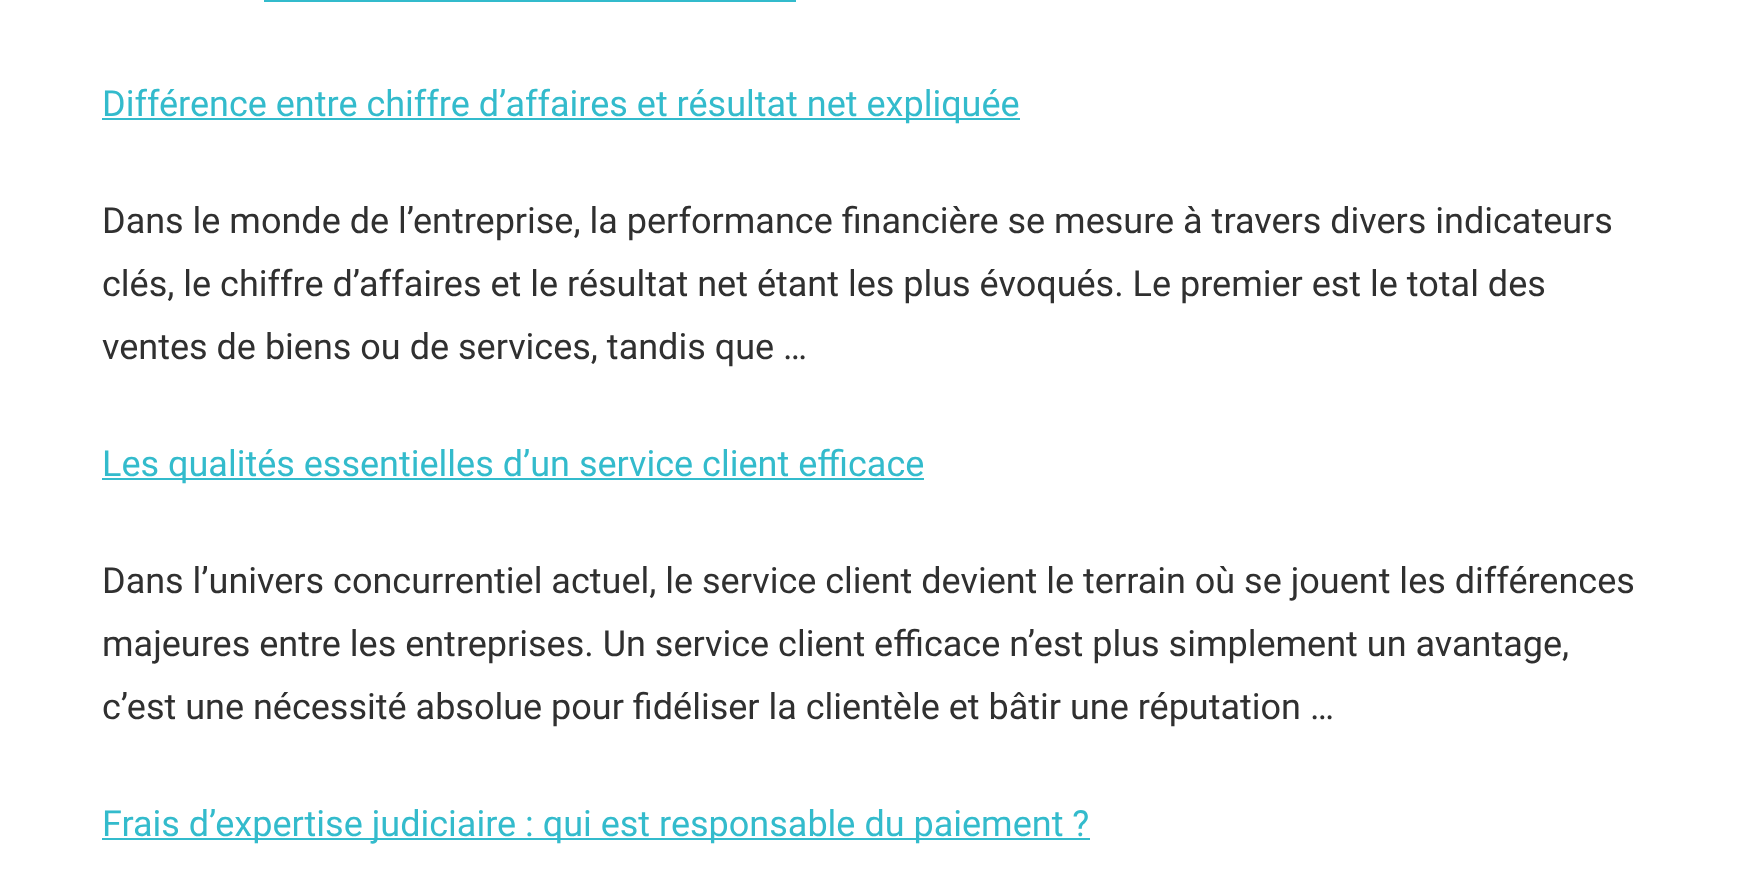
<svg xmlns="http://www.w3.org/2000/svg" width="1747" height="870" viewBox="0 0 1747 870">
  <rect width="100%" height="100%" fill="rgb(255,255,255)"/>
  <rect x="264" y="0" width="532" height="2" fill="rgb(51,187,204)"/>
  <rect x="102" y="118" width="918" height="2" fill="rgb(51,187,204)"/>
  <text x="102" y="116" font-family="Roboto" font-size="36" fill="rgb(51,187,204)">Différence entre chiffre d’affaires et résultat net expliquée</text>
  <g font-family="Roboto" font-size="36" fill="rgb(48,48,48)">
    <text>
      <tspan x="102" y="233">Dans le monde de l’entreprise, la performance financière se mesure à travers divers indicateurs</tspan>
      <tspan x="102" y="296">clés, le chiffre d’affaires et le résultat net étant les plus évoqués. Le premier est le total des</tspan>
      <tspan x="102" y="359">ventes de biens ou de services, tandis que …</tspan>
    </text>
  </g>
  <rect x="102" y="478" width="822" height="2" fill="rgb(51,187,204)"/>
  <text x="102" y="476" font-family="Roboto" font-size="36" fill="rgb(51,187,204)">Les qualités essentielles d’un service client efficace</text>
  <g font-family="Roboto" font-size="36" fill="rgb(48,48,48)">
    <text>
      <tspan x="102" y="593">Dans l’univers concurrentiel actuel, le service client devient le terrain où se jouent les différences</tspan>
      <tspan x="102" y="656">majeures entre les entreprises. Un service client efficace n’est plus simplement un avantage,</tspan>
      <tspan x="102" y="719">c’est une nécessité absolue pour fidéliser la clientèle et bâtir une réputation …</tspan>
    </text>
  </g>
  <rect x="102" y="838" width="988" height="2" fill="rgb(51,187,204)"/>
  <text x="102" y="836" font-family="Roboto" font-size="36" fill="rgb(51,187,204)">Frais d’expertise judiciaire : qui est responsable du paiement ?</text>
</svg>
